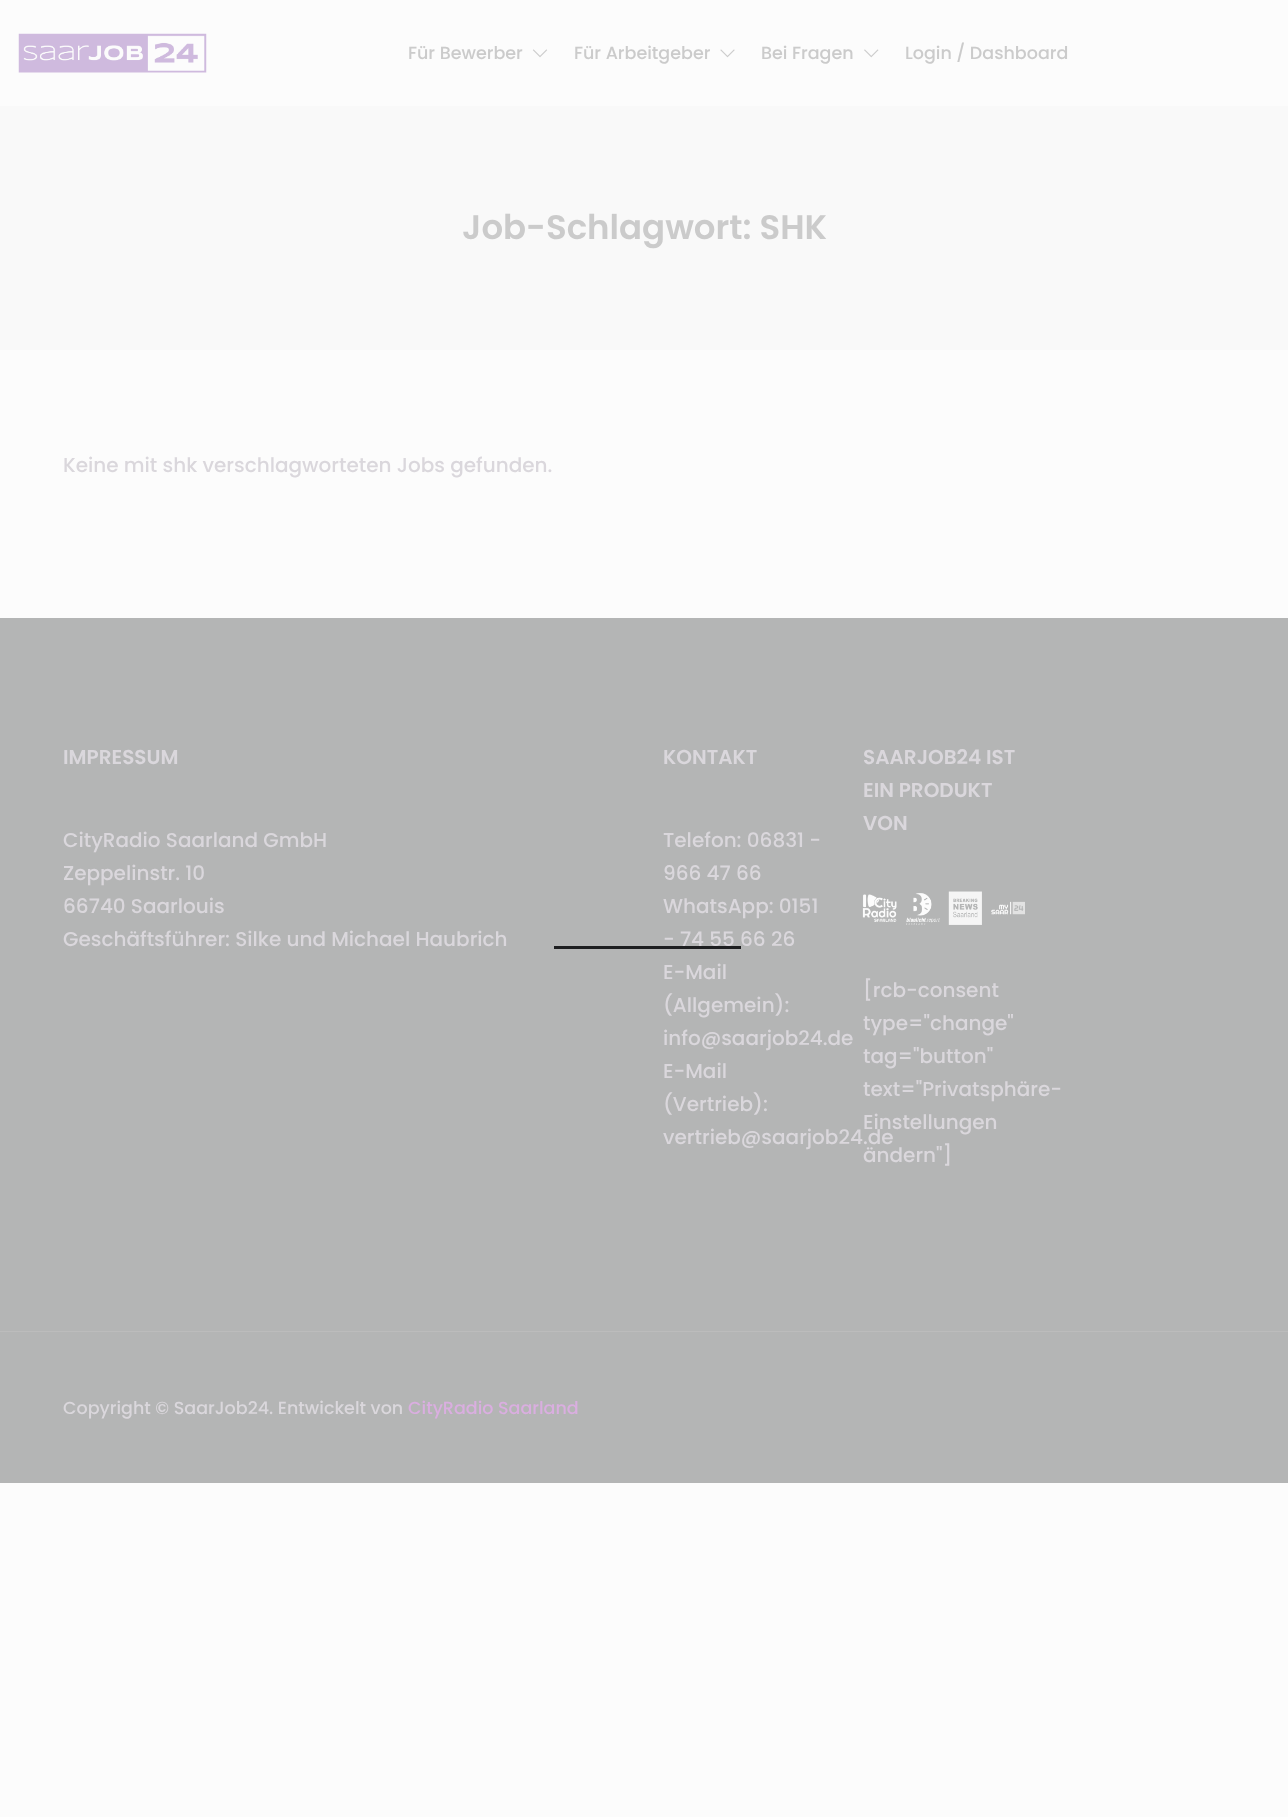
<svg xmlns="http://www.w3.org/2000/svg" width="1288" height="1817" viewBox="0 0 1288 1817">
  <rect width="100%" height="100%" fill="rgb(252,252,252)"/>
  <image x="18" y="33" width="189" height="40" href="pic1.png"/>
  <text x="408" y="59" font-family="Poppins" font-size="17.5" font-weight="500" fill="rgb(203,203,203)">Für Bewerber</text>
  <image x="532" y="49" width="16" height="9" href="pic2.png"/>
  <text x="574" y="59" font-family="Poppins" font-size="17.5" font-weight="500" fill="rgb(203,203,203)">Für Arbeitgeber</text>
  <image x="720" y="49" width="15" height="9" href="pic3.png"/>
  <text x="761" y="59" font-family="Poppins" font-size="17.5" font-weight="500" fill="rgb(203,203,203)">Bei Fragen</text>
  <image x="864" y="49" width="15" height="9" href="pic4.png"/>
  <text x="905" y="59" font-family="Poppins" font-size="17.5" font-weight="500" fill="rgb(203,203,203)">Login / Dashboard</text>
  <rect x="0" y="106" width="1288" height="244" fill="rgb(249,249,249)"/>
  <text x="462" y="239" font-family="Poppins" font-size="34" font-weight="600" fill="rgb(203,203,203)">Job-Schlagwort: SHK</text>
  <text x="63" y="472" font-family="Poppins" font-size="20" font-weight="500" fill="rgb(218,215,220)">Keine mit shk verschlagworteten Jobs gefunden.</text>
  <rect x="0" y="618" width="1288" height="865" fill="rgb(180,181,181)"/>
  <rect x="0" y="1331" width="1288" height="1" fill="rgb(188,188,188)"/>
  <text x="63" y="764" font-family="Poppins" font-size="20" font-weight="600" fill="rgb(218,215,220)">IMPRESSUM</text>
  <g font-family="Poppins" font-size="20" font-weight="500" fill="rgb(218,215,220)">
    <text>
      <tspan x="63" y="847">CityRadio Saarland GmbH</tspan>
      <tspan x="63" y="880">Zeppelinstr. 10</tspan>
      <tspan x="63" y="913">66740 Saarlouis</tspan>
      <tspan x="63" y="946">Geschäftsführer: Silke und Michael Haubrich</tspan>
    </text>
  </g>
  <text x="663" y="764" font-family="Poppins" font-size="20" font-weight="600" fill="rgb(218,215,220)">KONTAKT</text>
  <g font-family="Poppins" font-size="20" font-weight="500" fill="rgb(218,215,220)">
    <text>
      <tspan x="663" y="847">Telefon: 06831 -</tspan>
      <tspan x="663" y="880">966 47 66</tspan>
      <tspan x="663" y="913">WhatsApp: 0151</tspan>
      <tspan x="663" y="946">- 74 55 66 26</tspan>
      <tspan x="663" y="979">E-Mail</tspan>
      <tspan x="663" y="1012">(Allgemein):</tspan>
      <tspan x="663" y="1045">info@saarjob24.de</tspan>
      <tspan x="663" y="1078">E-Mail</tspan>
      <tspan x="663" y="1111">(Vertrieb):</tspan>
      <tspan x="663" y="1144">vertrieb@saarjob24.de</tspan>
    </text>
  </g>
  <g font-family="Poppins" font-size="20" font-weight="600" fill="rgb(218,215,220)">
    <text>
      <tspan x="863" y="764">SAARJOB24 IST</tspan>
      <tspan x="863" y="797">EIN PRODUKT</tspan>
      <tspan x="863" y="830">VON</tspan>
    </text>
  </g>
  <image x="862" y="891" width="163" height="34" href="pic5.png"/>
  <g font-family="Poppins" font-size="20" font-weight="500" fill="rgb(218,215,220)">
    <text>
      <tspan x="863" y="997">[rcb-consent</tspan>
      <tspan x="863" y="1030">type="change"</tspan>
      <tspan x="863" y="1063">tag="button"</tspan>
      <tspan x="863" y="1096">text="Privatsphäre-</tspan>
      <tspan x="863" y="1129">Einstellungen</tspan>
      <tspan x="863" y="1162">ändern"]</tspan>
    </text>
  </g>
  <text x="63" y="1414" font-family="Poppins" font-size="17.5" font-weight="500" fill="rgb(218,215,220)">Copyright © SaarJob24. Entwickelt von</text>
  <text x="408" y="1414" font-family="Poppins" font-size="17.5" font-weight="500" fill="rgb(218,174,224)">CityRadio Saarland</text>
  <rect x="554" y="946" width="187" height="3" fill="rgb(30,31,33)"/>
</svg>
